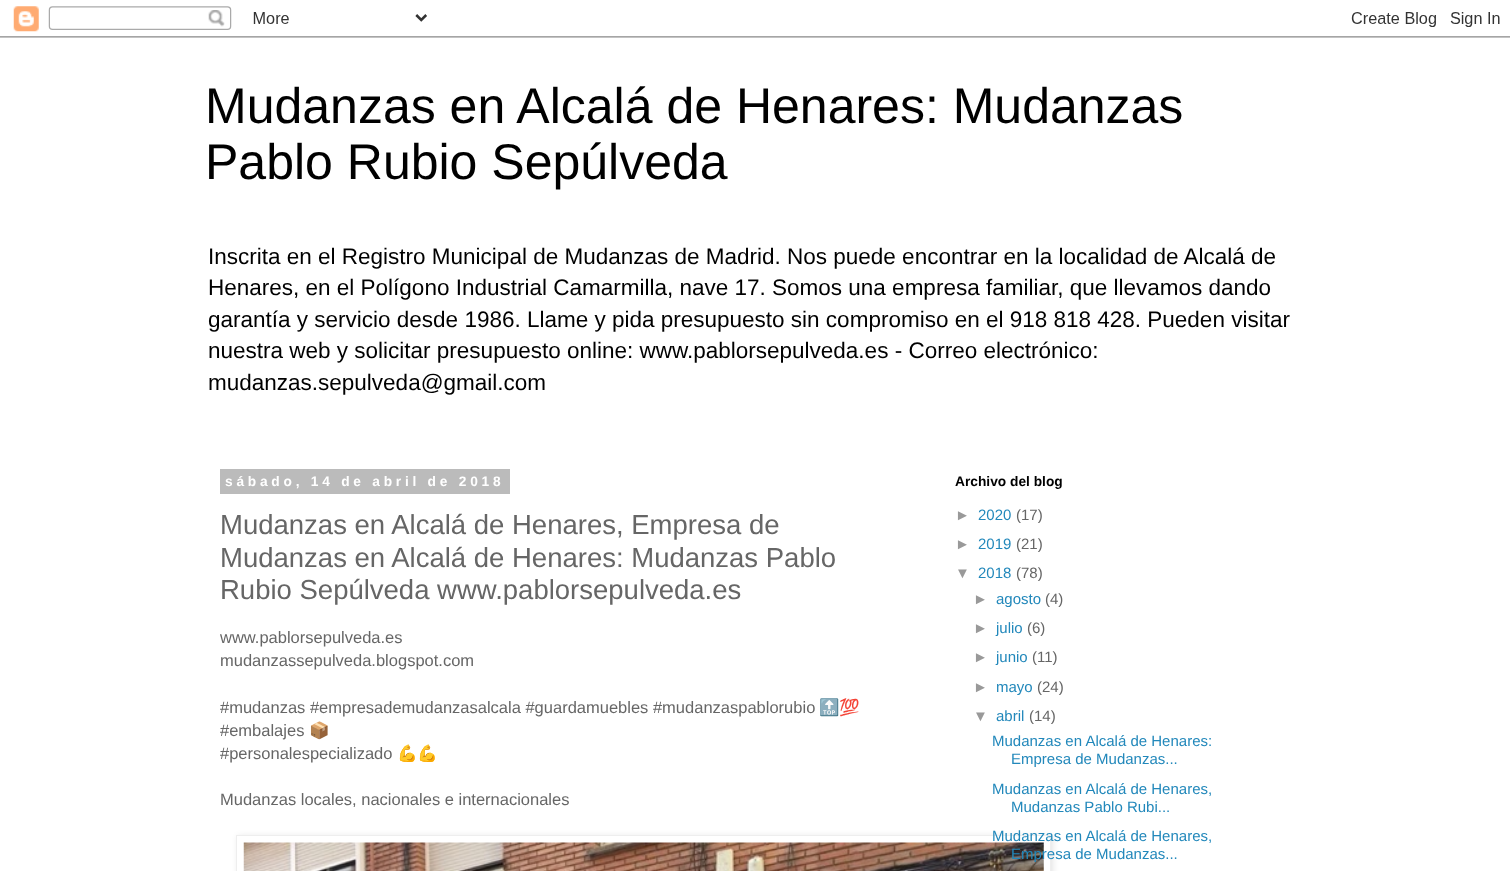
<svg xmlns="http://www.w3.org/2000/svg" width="1510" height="871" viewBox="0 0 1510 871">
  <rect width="100%" height="100%" fill="rgb(255,255,255)"/>
  <image x="0" y="6" width="1510" height="32" href="pic1.png"/>
  <g font-family="Liberation Sans" font-size="50" fill="rgb(0,0,0)">
    <text>
      <tspan x="205" y="123">Mudanzas en Alcalá de Henares: Mudanzas</tspan>
      <tspan x="205" y="179">Pablo Rubio Sepúlveda</tspan>
    </text>
  </g>
  <g font-family="Liberation Sans" font-size="22.5" fill="rgb(0,0,0)">
    <text>
      <tspan x="208" y="264">Inscrita en el Registro Municipal de Mudanzas de Madrid. Nos puede encontrar en la localidad de Alcalá de</tspan>
      <tspan x="208" y="295">Henares, en el Polígono Industrial Camarmilla, nave 17. Somos una empresa familiar, que llevamos dando</tspan>
      <tspan x="208" y="327">garantía y servicio desde 1986. Llame y pida presupuesto sin compromiso en el 918 818 428. Pueden visitar</tspan>
      <tspan x="208" y="358">nuestra web y solicitar presupuesto online: www.pablorsepulveda.es - Correo electrónico:</tspan>
      <tspan x="208" y="390">mudanzas.sepulveda@gmail.com</tspan>
    </text>
  </g>
  <rect x="220" y="469" width="290" height="25" fill="rgb(187,187,187)"/>
  <text x="225" y="486" font-family="Liberation Sans" font-size="13.75" font-weight="bold" letter-spacing="3.75" fill="rgb(255,255,255)">sábado, 14 de abril de 2018</text>
  <g font-family="Liberation Sans" font-size="27.5" fill="rgb(102,102,102)">
    <text>
      <tspan x="220" y="534">Mudanzas en Alcalá de Henares, Empresa de</tspan>
      <tspan x="220" y="567">Mudanzas en Alcalá de Henares: Mudanzas Pablo</tspan>
      <tspan x="220" y="599">Rubio Sepúlveda www.pablorsepulveda.es</tspan>
    </text>
  </g>
  <g font-family="Liberation Sans" font-size="16.5" fill="rgb(102,102,102)">
    <text>
      <tspan x="220" y="643">www.pablorsepulveda.es</tspan>
      <tspan x="220" y="666">mudanzassepulveda.blogspot.com</tspan>
    </text>
    <text x="220" y="713">#mudanzas #empresademudanzasalcala #guardamuebles #mudanzaspablorubio</text>
  </g>
  <text x="819" y="713" font-family="Noto Color Emoji" font-size="16.5" fill="rgb(102,102,102)">🔝💯</text>
  <text x="220" y="736" font-family="Liberation Sans" font-size="16.5" fill="rgb(102,102,102)">#embalajes</text>
  <text x="309" y="736" font-family="Noto Color Emoji" font-size="16.5" fill="rgb(102,102,102)">📦</text>
  <text x="220" y="759" font-family="Liberation Sans" font-size="16.5" fill="rgb(102,102,102)">#personalespecializado</text>
  <text x="397" y="759" font-family="Noto Color Emoji" font-size="16.5" fill="rgb(102,102,102)">💪💪</text>
  <text x="220" y="805" font-family="Liberation Sans" font-size="16.5" fill="rgb(102,102,102)">Mudanzas locales, nacionales e internacionales</text>
  <rect x="238" y="836" width="815" height="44" fill="rgba(0,0,0,0.1)" filter="blur(3px)"/>
  <rect x="236.5" y="835.5" width="814" height="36" fill="rgb(255,255,255)" stroke="rgb(238,238,238)"/>
  <image x="243" y="842" width="801" height="29" href="pic2.png"/>
  <text x="955" y="486" font-family="Liberation Sans" font-size="13.75" font-weight="bold" fill="rgb(0,0,0)">Archivo del blog</text>
  <text x="955" y="520" font-family="Liberation Sans" font-size="15" fill="rgb(153,153,153)">►</text>
  <text x="978" y="520" font-family="Liberation Sans" font-size="15" fill="rgb(34,136,187)">2020</text>
  <text x="1016" y="520" font-family="Liberation Sans" font-size="15" fill="rgb(102,102,102)">(17)</text>
  <text x="955" y="549" font-family="Liberation Sans" font-size="15" fill="rgb(153,153,153)">►</text>
  <text x="978" y="549" font-family="Liberation Sans" font-size="15" fill="rgb(34,136,187)">2019</text>
  <text x="1016" y="549" font-family="Liberation Sans" font-size="15" fill="rgb(102,102,102)">(21)</text>
  <text x="955" y="578" font-family="Liberation Sans" font-size="15" fill="rgb(153,153,153)">▼</text>
  <text x="978" y="578" font-family="Liberation Sans" font-size="15" fill="rgb(34,136,187)">2018</text>
  <text x="1016" y="578" font-family="Liberation Sans" font-size="15" fill="rgb(102,102,102)">(78)</text>
  <text x="973" y="604" font-family="Liberation Sans" font-size="15" fill="rgb(153,153,153)">►</text>
  <text x="996" y="604" font-family="Liberation Sans" font-size="15" fill="rgb(34,136,187)">agosto</text>
  <text x="1045" y="604" font-family="Liberation Sans" font-size="15" fill="rgb(102,102,102)">(4)</text>
  <text x="973" y="633" font-family="Liberation Sans" font-size="15" fill="rgb(153,153,153)">►</text>
  <text x="996" y="633" font-family="Liberation Sans" font-size="15" fill="rgb(34,136,187)">julio</text>
  <text x="1027" y="633" font-family="Liberation Sans" font-size="15" fill="rgb(102,102,102)">(6)</text>
  <text x="973" y="662" font-family="Liberation Sans" font-size="15" fill="rgb(153,153,153)">►</text>
  <text x="996" y="662" font-family="Liberation Sans" font-size="15" fill="rgb(34,136,187)">junio</text>
  <text x="1032" y="662" font-family="Liberation Sans" font-size="15" fill="rgb(102,102,102)">(11)</text>
  <text x="973" y="692" font-family="Liberation Sans" font-size="15" fill="rgb(153,153,153)">►</text>
  <text x="996" y="692" font-family="Liberation Sans" font-size="15" fill="rgb(34,136,187)">mayo</text>
  <text x="1037" y="692" font-family="Liberation Sans" font-size="15" fill="rgb(102,102,102)">(24)</text>
  <text x="973" y="721" font-family="Liberation Sans" font-size="15" fill="rgb(153,153,153)">▼</text>
  <text x="996" y="721" font-family="Liberation Sans" font-size="15" fill="rgb(34,136,187)">abril</text>
  <text x="1029" y="721" font-family="Liberation Sans" font-size="15" fill="rgb(102,102,102)">(14)</text>
  <g font-family="Liberation Sans" font-size="15" fill="rgb(34,136,187)">
    <text x="992" y="746">Mudanzas en Alcalá de Henares:</text>
    <text x="1011" y="764">Empresa de Mudanzas...</text>
    <text x="992" y="794">Mudanzas en Alcalá de Henares,</text>
    <text x="1011" y="812">Mudanzas Pablo Rubi...</text>
    <text x="992" y="841">Mudanzas en Alcalá de Henares,</text>
    <text x="1011" y="859">Empresa de Mudanzas...</text>
  </g>
</svg>
